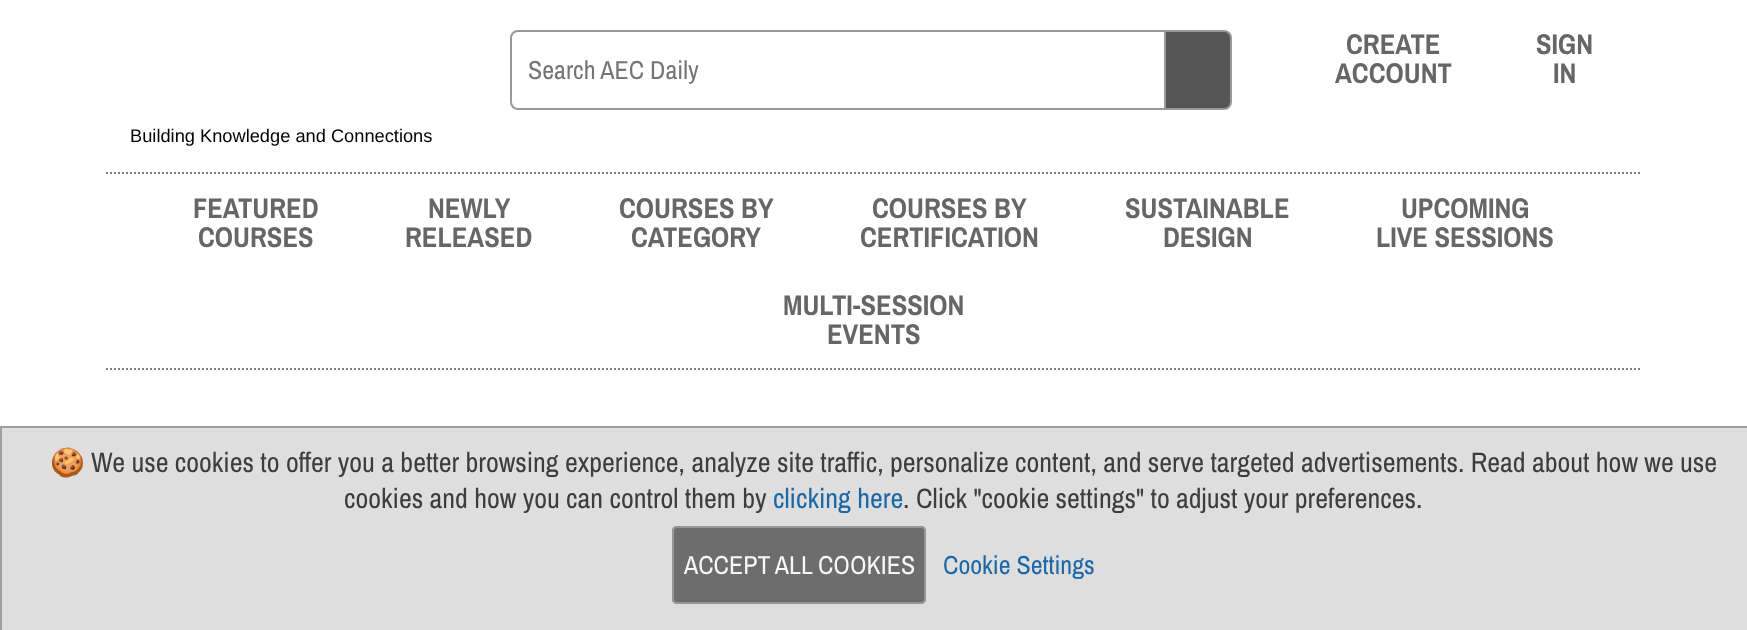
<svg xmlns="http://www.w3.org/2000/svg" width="1747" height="630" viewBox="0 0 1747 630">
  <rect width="100%" height="100%" fill="rgb(255,255,255)"/>
  <path d="M518 31H1165V109H518C514 109 511 106 511 102V38C511 34 514 31 518 31Z" fill="none" stroke="rgb(153,153,153)" stroke-width="2"/>
  <text x="528" y="79" font-family="Archivo Narrow" font-size="26" fill="rgb(117,117,117)">Search AEC Daily</text>
  <path d="M1165 31H1224C1228 31 1231 34 1231 38V102C1231 106 1228 109 1224 109H1165Z" fill="rgb(85,85,85)" stroke="rgb(153,153,153)" stroke-width="2"/>
  <g font-family="Archivo Narrow" font-size="28.5" font-weight="bold" fill="rgb(102,102,102)">
    <text x="1346" y="54">CREATE</text>
    <text x="1335" y="83">ACCOUNT</text>
    <text x="1536" y="54">SIGN</text>
    <text x="1553" y="83">IN</text>
  </g>
  <text x="130" y="142" font-family="Liberation Sans" font-size="18.25" fill="rgb(0,0,0)">Building Knowledge and Connections</text>
  <path d="M106 173H1642" fill="none" stroke="rgb(128,128,128)" stroke-width="2" stroke-dasharray="2 2"/>
  <path d="M106 369H1642" fill="none" stroke="rgb(128,128,128)" stroke-width="2" stroke-dasharray="2 2"/>
  <g font-family="Archivo Narrow" font-size="28.5" font-weight="bold" fill="rgb(102,102,102)">
    <text x="193" y="218">FEATURED</text>
    <text x="198" y="247">COURSES</text>
    <text x="428" y="218">NEWLY</text>
    <text x="405" y="247">RELEASED</text>
    <text x="619" y="218">COURSES BY</text>
    <text x="631" y="247">CATEGORY</text>
    <text x="872" y="218">COURSES BY</text>
    <text x="860" y="247">CERTIFICATION</text>
    <text x="1125" y="218">SUSTAINABLE</text>
    <text x="1163" y="247">DESIGN</text>
    <text x="1401" y="218">UPCOMING</text>
    <text x="1376" y="247">LIVE SESSIONS</text>
    <text x="783" y="315">MULTI-SESSION</text>
    <text x="827" y="344">EVENTS</text>
  </g>
  <rect x="107" y="503" width="1534" height="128" fill="none" stroke="rgb(220,220,220)" stroke-width="2"/>
  <rect x="2" y="426" width="1745" height="204" fill="rgba(220,220,220,0.95)"/>
  <rect x="0" y="426" width="1747" height="2" fill="rgba(153,153,153,0.95)"/>
  <rect x="0" y="426" width="2" height="204" fill="rgb(158,158,158)"/>
  <text x="50" y="472" font-family="Noto Color Emoji" font-size="28" fill="rgb(61,61,61)">🍪</text>
  <g font-family="Archivo Narrow" font-size="28" fill="rgb(61,61,61)">
    <text x="91" y="472">We use cookies to offer you a better browsing experience, analyze site traffic,</text>
    <text x="890" y="472">personalize content, and serve targeted advertisements. Read about how we use</text>
    <text x="344" y="508">cookies and how you can control them by</text>
  </g>
  <text x="773" y="508" font-family="Archivo Narrow" font-size="28" fill="rgb(27,103,168)">clicking here</text>
  <g font-family="Archivo Narrow" font-size="28" fill="rgb(61,61,61)">
    <text x="903" y="508">.</text>
    <text x="916" y="508">Click "cookie settings" to adjust your preferences.</text>
  </g>
  <rect x="672" y="526" width="254" height="78" rx="5" fill="rgba(102,102,102,0.95)"/>
  <rect x="673" y="527" width="252" height="76" rx="4" fill="none" stroke="rgba(153,153,153,0.95)" stroke-width="2"/>
  <text x="684" y="574" font-family="Archivo Narrow" font-size="26" fill="rgb(248,248,248)">ACCEPT ALL COOKIES</text>
  <text x="943" y="574" font-family="Archivo Narrow" font-size="26" fill="rgb(27,103,168)">Cookie Settings</text>
</svg>
